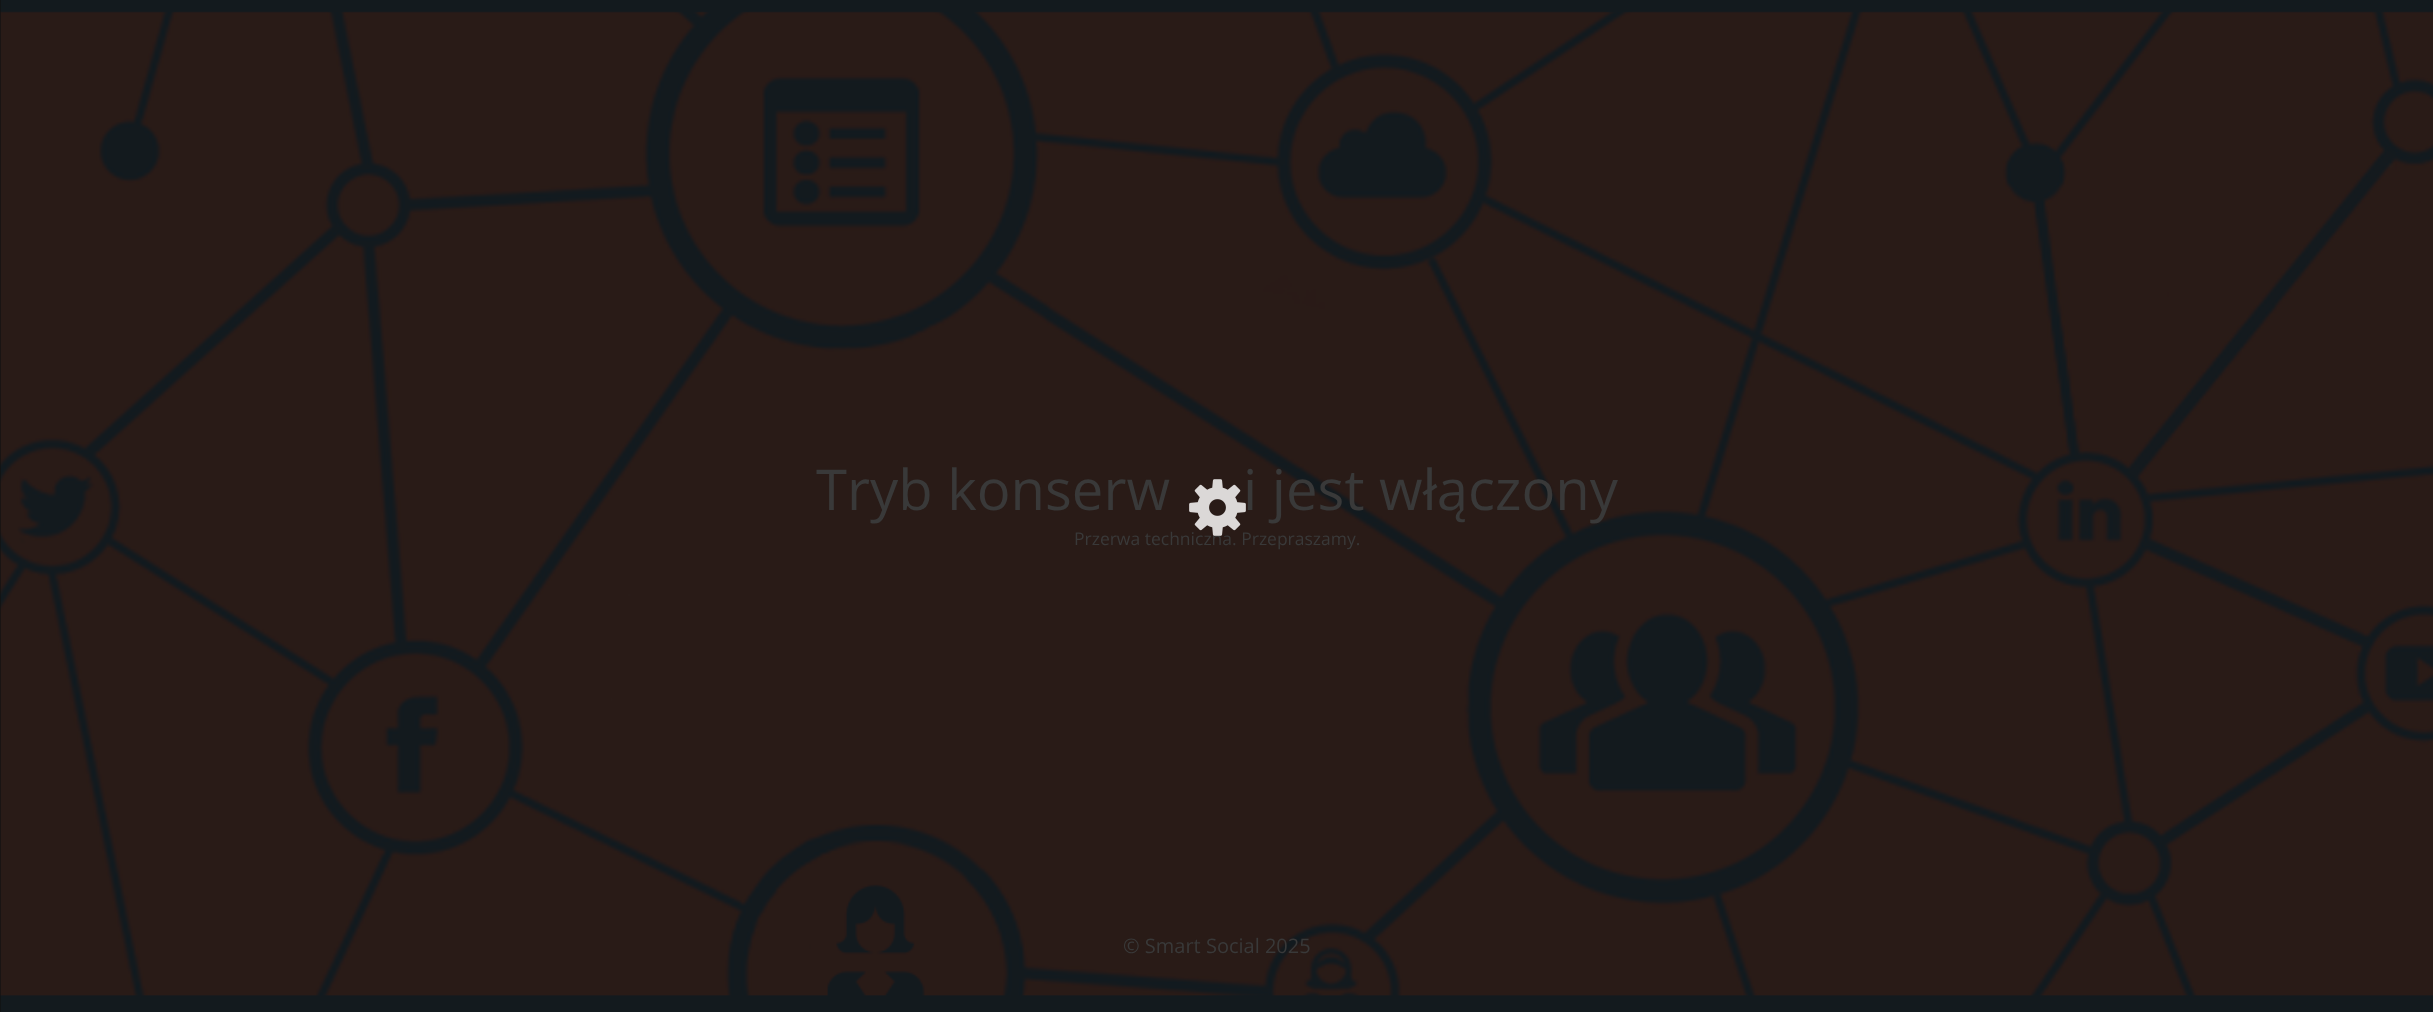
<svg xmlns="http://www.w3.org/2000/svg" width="2433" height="1012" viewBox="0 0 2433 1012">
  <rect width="100%" height="100%" fill="rgb(17,17,17)"/>
  <image x="0" y="0" width="2433" height="1012" href="pic1.png"/>
  <g font-family="Open Sans" font-size="56.25" fill="rgb(57,57,57)">
    <text x="816" y="510">Tryb konserw</text>
    <text x="1243" y="510">i jest włączony</text>
  </g>
  <text x="1074" y="545" font-family="Open Sans" font-size="17.5" fill="rgb(57,57,57)">Przerwa techniczna. Przepraszamy.</text>
  <image x="1189" y="479" width="57" height="57" href="pic2.png"/>
  <text x="1123" y="953" font-family="Open Sans" font-size="20" fill="rgb(57,57,57)">© Smart Social 2025</text>
</svg>
